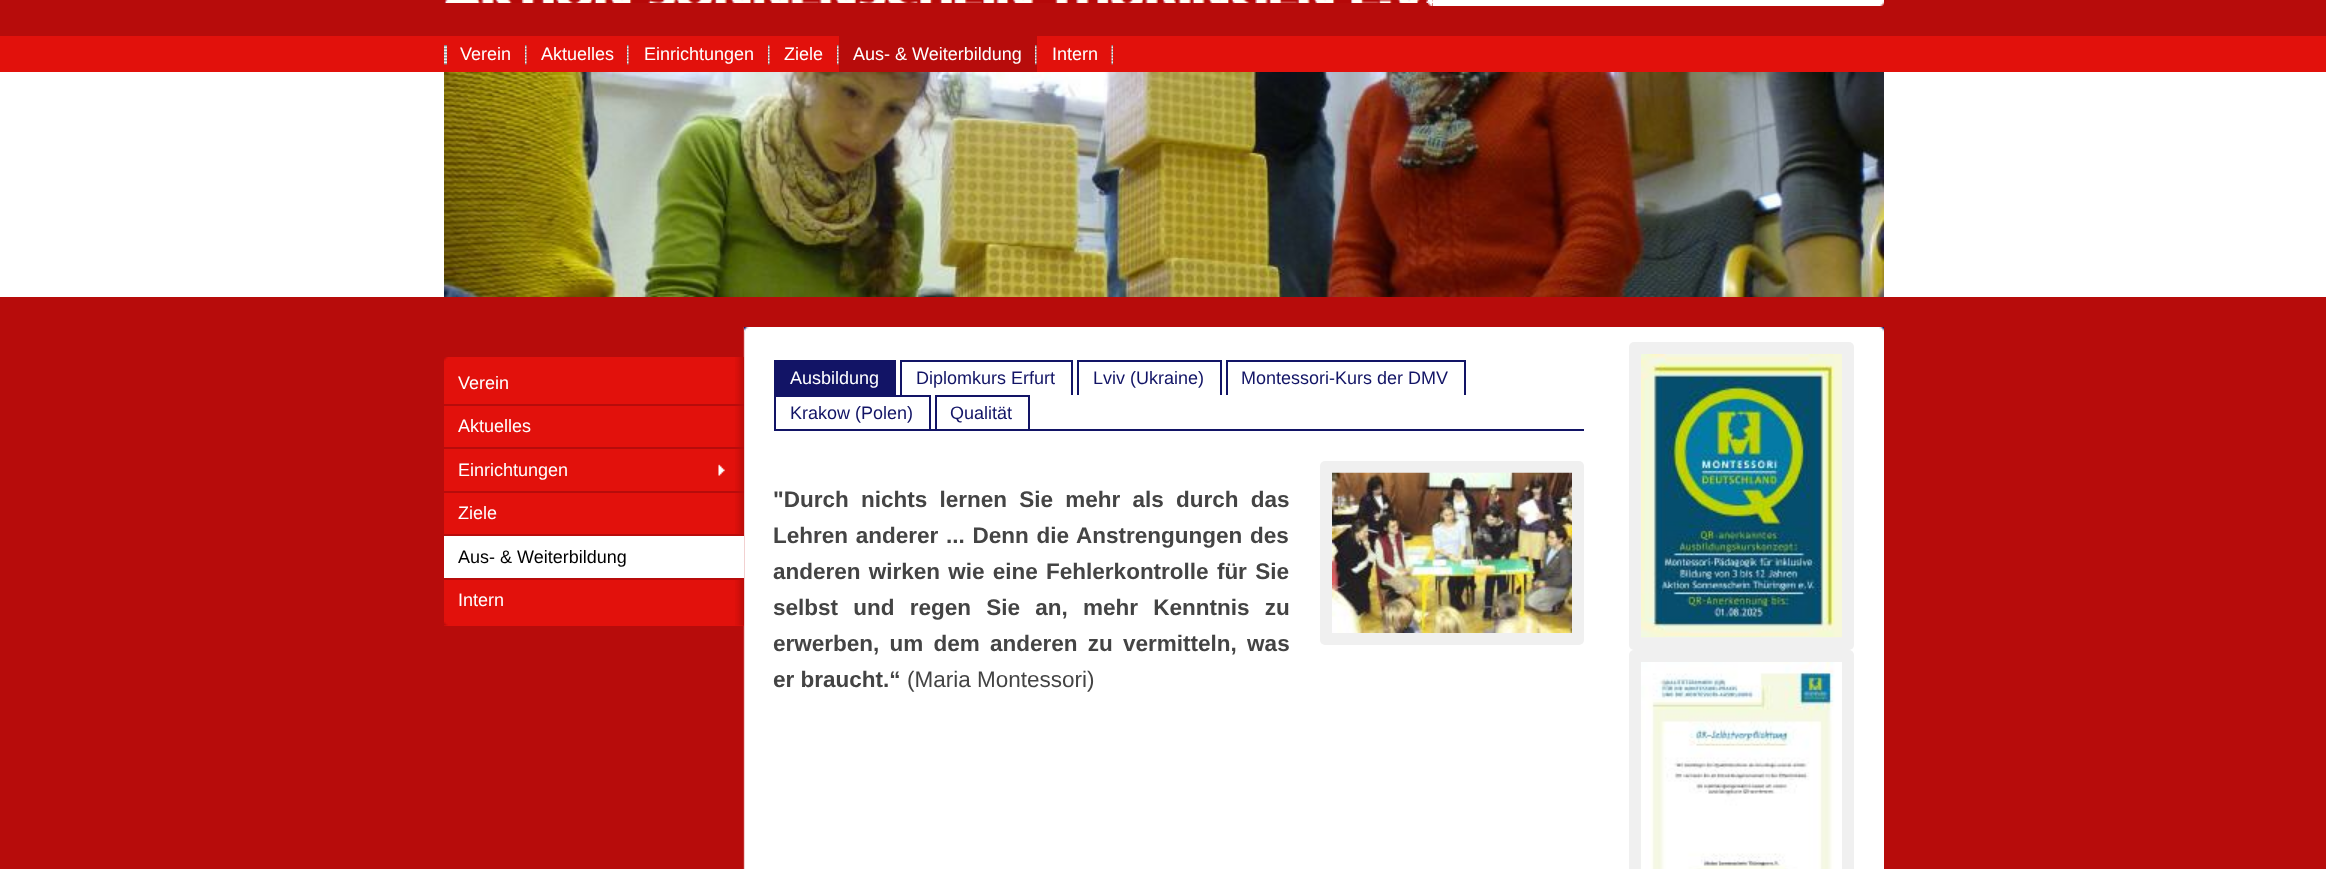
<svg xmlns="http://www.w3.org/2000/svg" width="2326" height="869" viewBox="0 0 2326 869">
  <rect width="100%" height="100%" fill="rgb(183,12,11)"/>
  <image x="444" y="0" width="989" height="3" href="pic1.png"/>
  <image x="1428" y="0" width="5" height="6" href="pic2.png"/>
  <rect x="1433" y="0" width="447" height="6" fill="rgb(255,255,255)"/>
  <image x="1880" y="0" width="4" height="6" href="pic3.png"/>
  <rect x="0" y="36" width="2326" height="36" fill="rgb(226,17,12)"/>
  <image x="444" y="45" width="3" height="20" href="pic4.png"/>
  <image x="525" y="45" width="2" height="20" href="pic5.png"/>
  <text x="460" y="60" font-family="Liberation Sans" font-size="18" fill="rgb(255,255,255)">Verein</text>
  <image x="627" y="45" width="2" height="20" href="pic5.png"/>
  <text x="541" y="60" font-family="Liberation Sans" font-size="18" fill="rgb(255,255,255)">Aktuelles</text>
  <image x="768" y="45" width="2" height="20" href="pic5.png"/>
  <text x="644" y="60" font-family="Liberation Sans" font-size="18" fill="rgb(255,255,255)">Einrichtungen</text>
  <image x="837" y="45" width="2" height="20" href="pic5.png"/>
  <text x="784" y="60" font-family="Liberation Sans" font-size="18" fill="rgb(255,255,255)">Ziele</text>
  <rect x="839" y="36" width="198" height="36" fill="rgb(183,12,11)"/>
  <image x="1035" y="45" width="2" height="20" href="pic6.png"/>
  <text x="853" y="60" font-family="Liberation Sans" font-size="18" fill="rgb(255,255,255)">Aus- &amp; Weiterbildung</text>
  <image x="1111" y="45" width="2" height="20" href="pic7.png"/>
  <text x="1052" y="60" font-family="Liberation Sans" font-size="18" fill="rgb(255,255,255)">Intern</text>
  <rect x="0" y="72" width="2326" height="225" fill="rgb(255,255,255)"/>
  <image x="444" y="72" width="1440" height="225" href="pic8.png"/>
  <image x="743" y="327" width="1141" height="542" href="pic9.png"/>
  <image x="744" y="327" width="1140" height="5" href="pic10.png"/>
  <rect x="444" y="357" width="300" height="269" fill="rgb(226,17,12)"/>
  <image x="735" y="357" width="9" height="269" href="pic11.png"/>
  <image x="444" y="357" width="4" height="4" href="pic12.png"/>
  <text x="458" y="389" font-family="Liberation Sans" font-size="18" fill="rgb(255,255,255)">Verein</text>
  <rect x="444" y="404" width="300" height="2" fill="rgb(183,12,11)"/>
  <text x="458" y="432" font-family="Liberation Sans" font-size="18" fill="rgb(255,255,255)">Aktuelles</text>
  <image x="718" y="464" width="7" height="12" href="pic13.png"/>
  <rect x="444" y="447" width="300" height="2" fill="rgb(183,12,11)"/>
  <text x="458" y="476" font-family="Liberation Sans" font-size="18" fill="rgb(255,255,255)">Einrichtungen</text>
  <rect x="444" y="491" width="300" height="2" fill="rgb(183,12,11)"/>
  <text x="458" y="519" font-family="Liberation Sans" font-size="18" fill="rgb(255,255,255)">Ziele</text>
  <rect x="444" y="536" width="300" height="42" fill="rgb(255,255,255)"/>
  <rect x="444" y="534" width="300" height="2" fill="rgb(183,12,11)"/>
  <text x="458" y="563" font-family="Liberation Sans" font-size="18" fill="rgb(0,0,0)">Aus- &amp; Weiterbildung</text>
  <rect x="444" y="578" width="300" height="2" fill="rgb(183,12,11)"/>
  <text x="458" y="606" font-family="Liberation Sans" font-size="18" fill="rgb(255,255,255)">Intern</text>
  <image x="444" y="622" width="4" height="4" href="pic14.png"/>
  <rect x="774" y="429" width="810" height="2" fill="rgb(18,20,102)"/>
  <rect x="774" y="360" width="122" height="35" fill="rgb(18,20,102)"/>
  <text x="790" y="384" font-family="Liberation Sans" font-size="18" fill="rgb(255,255,255)">Ausbildung</text>
  <rect x="900" y="360" width="173" height="2" fill="rgb(18,20,102)"/>
  <rect x="1071" y="360" width="2" height="35" fill="rgb(18,20,102)"/>
  <rect x="900" y="360" width="2" height="35" fill="rgb(18,20,102)"/>
  <text x="916" y="384" font-family="Liberation Sans" font-size="18" fill="rgb(18,20,102)">Diplomkurs Erfurt</text>
  <rect x="1077" y="360" width="144" height="2" fill="rgb(18,20,102)"/>
  <rect x="1220" y="360" width="2" height="35" fill="rgb(18,20,102)"/>
  <rect x="1077" y="360" width="2" height="35" fill="rgb(18,20,102)"/>
  <text x="1093" y="384" font-family="Liberation Sans" font-size="18" fill="rgb(18,20,102)">Lviv (Ukraine)</text>
  <rect x="1226" y="360" width="240" height="2" fill="rgb(18,20,102)"/>
  <rect x="1464" y="360" width="2" height="35" fill="rgb(18,20,102)"/>
  <rect x="1226" y="360" width="2" height="35" fill="rgb(18,20,102)"/>
  <text x="1241" y="384" font-family="Liberation Sans" font-size="18" fill="rgb(18,20,102)">Montessori-Kurs der DMV</text>
  <rect x="774" y="395" width="156" height="2" fill="rgb(18,20,102)"/>
  <rect x="929" y="395" width="2" height="34" fill="rgb(18,20,102)"/>
  <rect x="774" y="395" width="2" height="34" fill="rgb(18,20,102)"/>
  <text x="790" y="419" font-family="Liberation Sans" font-size="18" fill="rgb(18,20,102)">Krakow (Polen)</text>
  <rect x="935" y="395" width="94" height="2" fill="rgb(18,20,102)"/>
  <rect x="1028" y="395" width="2" height="34" fill="rgb(18,20,102)"/>
  <rect x="935" y="395" width="2" height="34" fill="rgb(18,20,102)"/>
  <text x="950" y="419" font-family="Liberation Sans" font-size="18" fill="rgb(18,20,102)">Qualität</text>
  <g font-family="Liberation Sans" font-size="22.5" font-weight="bold" fill="rgb(68,68,68)">
    <text>
      <tspan x="773" y="507" word-spacing="6">"Durch nichts lernen Sie mehr als durch das</tspan>
      <tspan x="773" y="543" word-spacing="1.5">Lehren anderer ... Denn die Anstrengungen des</tspan>
      <tspan x="773" y="579" word-spacing="2">anderen wirken wie eine Fehlerkontrolle für Sie</tspan>
      <tspan x="773" y="615" word-spacing="9">selbst und regen Sie an, mehr Kenntnis zu</tspan>
      <tspan x="773" y="651" word-spacing="4">erwerben, um dem anderen zu vermitteln, was</tspan>
      <tspan x="773" y="687">er braucht.“</tspan>
    </text>
  </g>
  <text x="907" y="687" font-family="Liberation Sans" font-size="22.5" fill="rgb(68,68,68)">(Maria Montessori)</text>
  <rect x="1320" y="461" width="264" height="184" rx="5" fill="rgb(240,240,240)"/>
  <image x="1332" y="472" width="240" height="161" href="pic15.png"/>
  <rect x="1629" y="342" width="225" height="308" rx="5" fill="rgb(240,240,240)"/>
  <image x="1641" y="354" width="201" height="284" href="pic16.png"/>
  <rect x="1629" y="650" width="225" height="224" rx="5" fill="rgb(240,240,240)"/>
  <image x="1641" y="662" width="201" height="207" href="pic17.png"/>
</svg>
